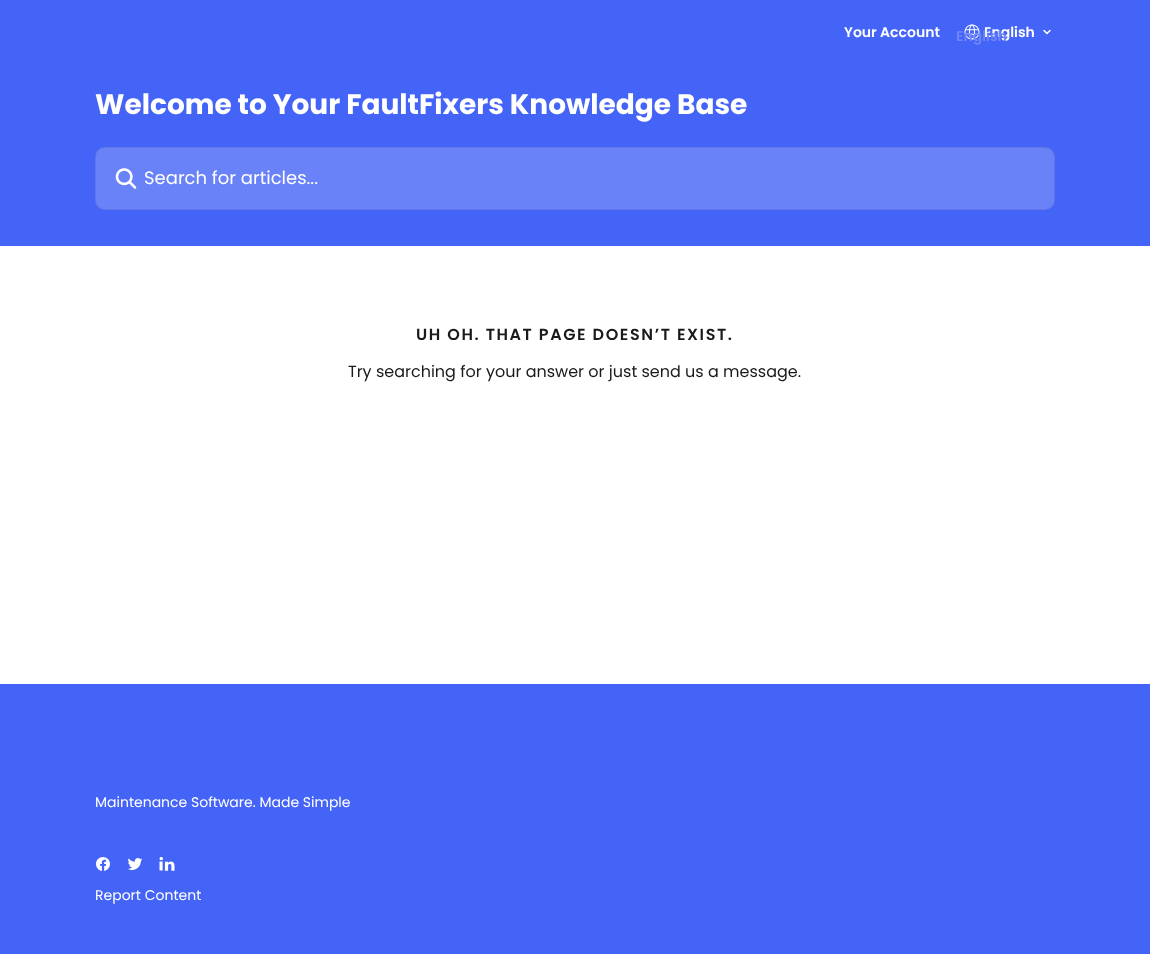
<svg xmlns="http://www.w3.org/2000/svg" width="1150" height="954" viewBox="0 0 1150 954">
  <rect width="100%" height="100%" fill="rgb(255,255,255)"/>
  <rect x="0" y="0" width="1150" height="246" fill="rgb(68,99,247)"/>
  <text x="844" y="37" font-family="Poppins" font-size="14" font-weight="600" fill="rgb(255,255,255)">Your Account</text>
  <image x="964" y="24" width="16" height="16" href="pic1.png"/>
  <text x="984" y="37" font-family="Poppins" font-size="14" font-weight="600" fill="rgb(255,255,255)">English</text>
  <text x="956" y="41" font-family="Poppins" font-size="14" font-weight="600" fill="rgb(110,134,249)">English</text>
  <path d="M1044 30.5L1047 33.5L1050 30.5" fill="none" stroke="rgb(255,255,255)" stroke-width="1.5" stroke-linecap="round" stroke-linejoin="round"/>
  <text x="95" y="114" font-family="Poppins" font-size="28" font-weight="bold" fill="rgb(255,255,255)">Welcome to Your FaultFixers Knowledge Base</text>
  <rect x="95" y="147" width="960" height="63" rx="10" fill="rgba(255,255,255,0.2)"/>
  <rect x="95.5" y="147.5" width="959" height="62" rx="9.5" fill="none" stroke="rgba(0,0,0,0.08)"/>
  <image x="115" y="168" width="22" height="21" href="pic2.png"/>
  <text x="144" y="184" font-family="Poppins" font-size="18" fill="rgb(255,255,255)">Search for articles...</text>
  <text x="416" y="340" font-family="Poppins" font-size="16" font-weight="600" letter-spacing="1.6" fill="rgb(26,26,26)">UH OH. THAT PAGE DOESN’T EXIST.</text>
  <text x="348" y="377" font-family="Poppins" font-size="16" fill="rgb(26,26,26)">Try searching for your answer or just send us a message.</text>
  <rect x="0" y="684" width="1150" height="270" fill="rgb(68,99,247)"/>
  <text x="95" y="807" font-family="Poppins" font-size="14" fill="rgb(255,255,255)">Maintenance Software. Made Simple</text>
  <image x="96" y="857" width="14" height="14" href="pic3.png"/>
  <image x="127" y="858" width="16" height="12" href="pic4.png"/>
  <image x="159" y="857" width="16" height="14" href="pic5.png"/>
  <text x="95" y="900" font-family="Poppins" font-size="14" fill="rgb(255,255,255)">Report Content</text>
</svg>
